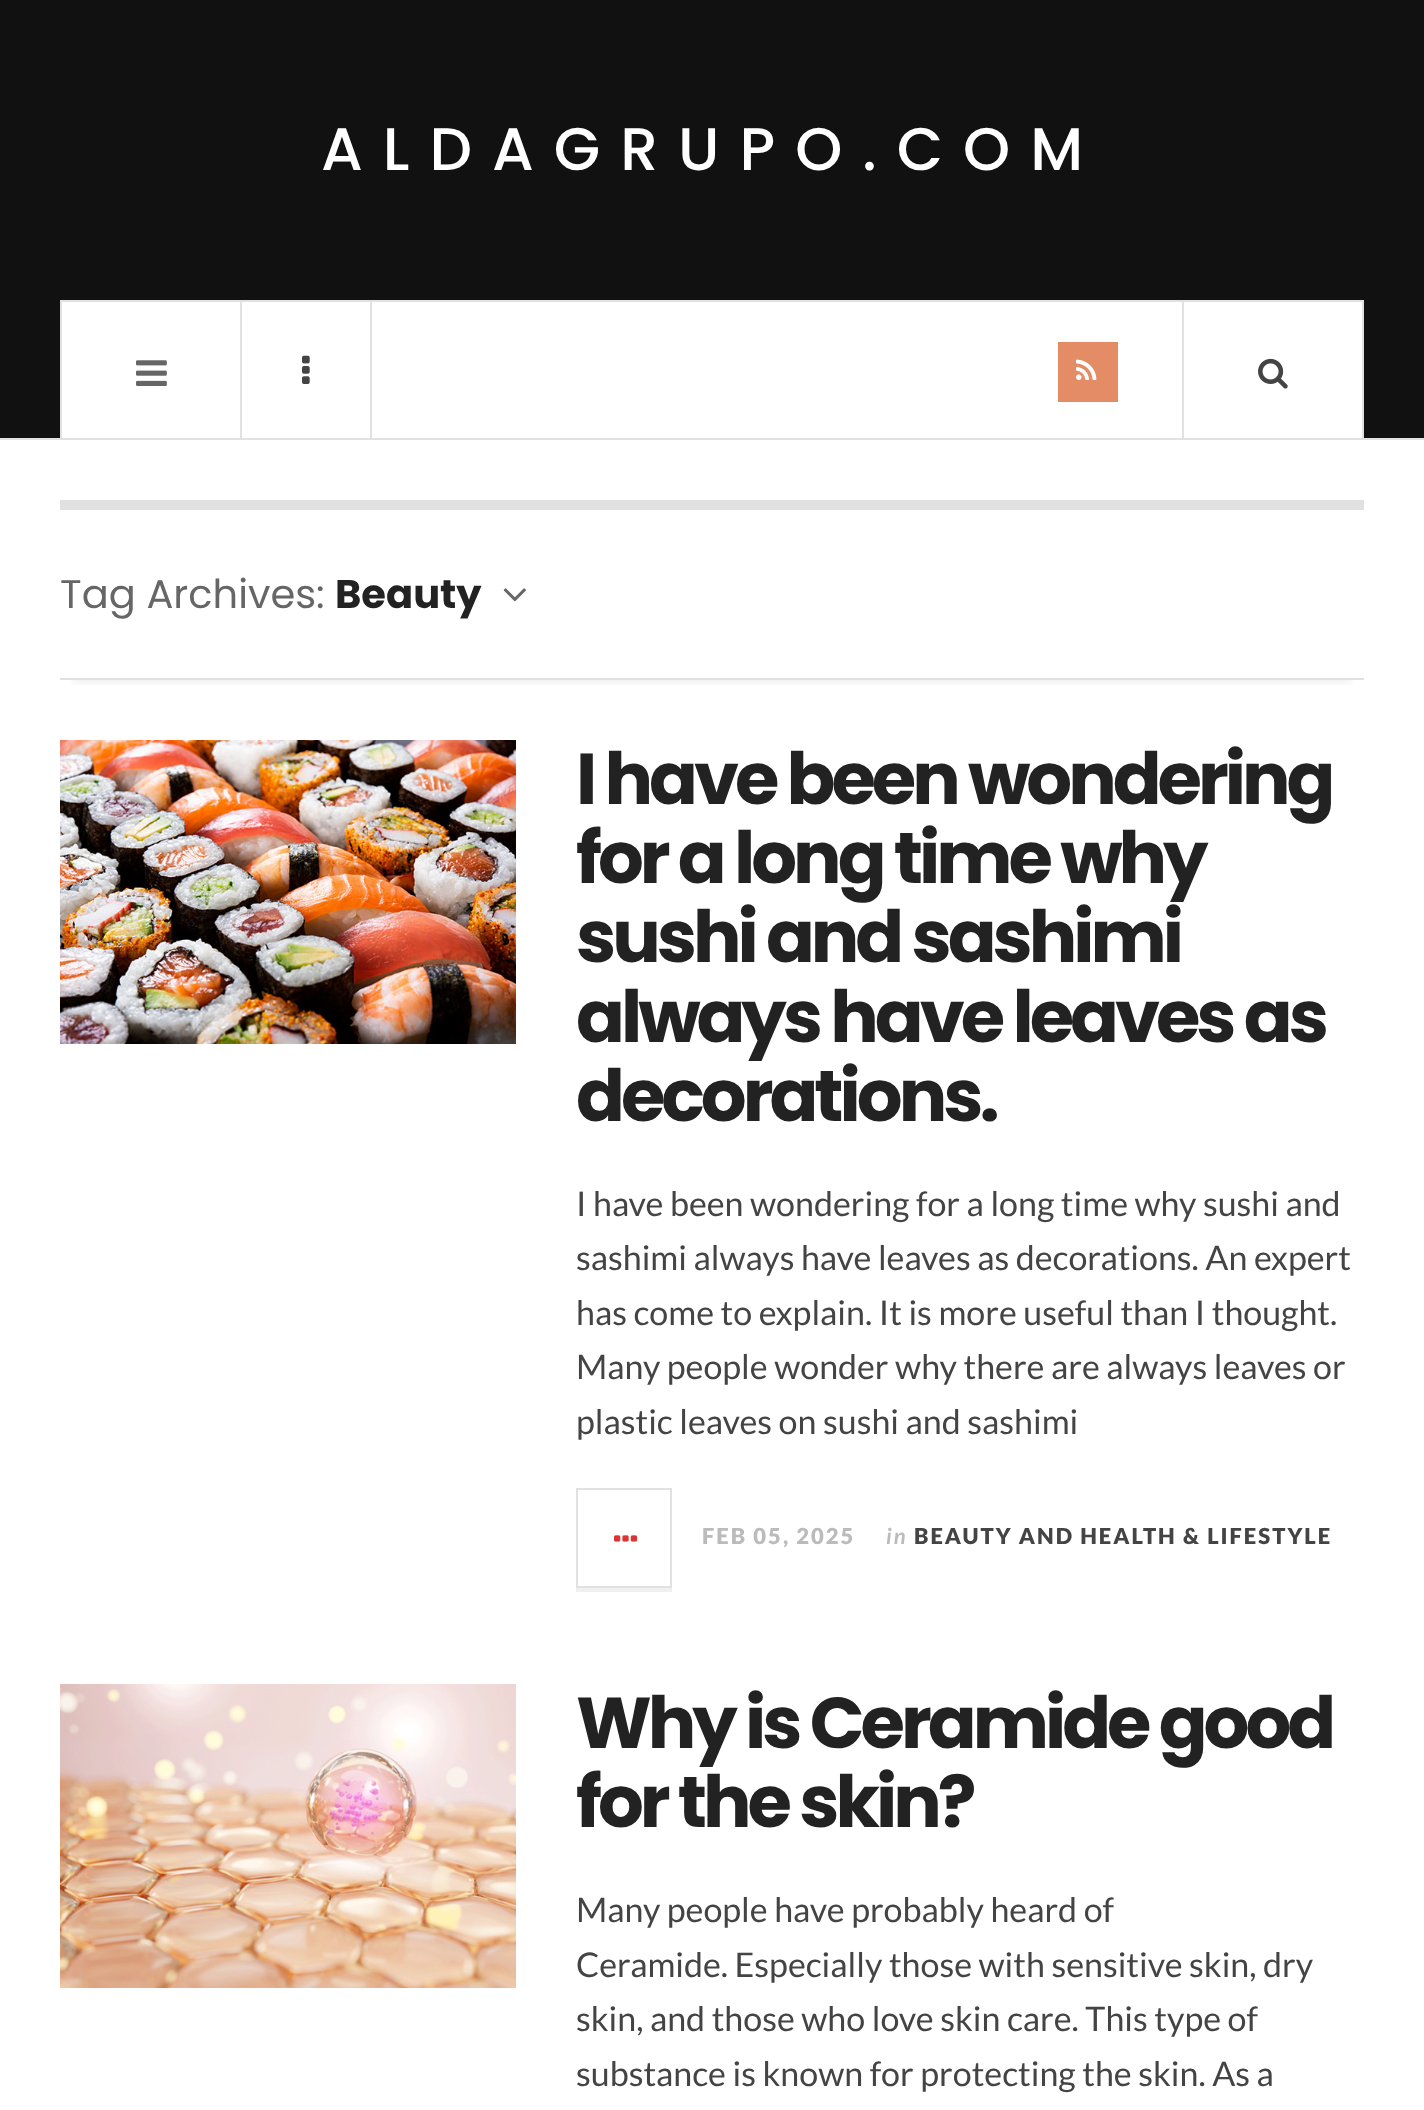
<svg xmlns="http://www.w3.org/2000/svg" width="1424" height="2110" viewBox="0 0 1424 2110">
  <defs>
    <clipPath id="clip1"><rect x="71" y="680" width="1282" height="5"/></clipPath>
  </defs>
  <rect width="100%" height="100%" fill="rgb(255,255,255)"/>
  <rect x="0" y="0" width="1424" height="438" fill="rgb(17,17,17)"/>
  <rect x="0" y="438" width="1424" height="2" fill="rgb(225,225,225)"/>
  <text x="321" y="170" font-family="Poppins" font-size="60" font-weight="500" letter-spacing="20" fill="rgb(255,255,255)">ALDAGRUPO.COM</text>
  <rect x="61" y="301" width="1302" height="138" fill="rgb(255,255,255)" stroke="rgb(225,225,225)" stroke-width="2"/>
  <rect x="240" y="302" width="2" height="136" fill="rgb(225,225,225)"/>
  <image x="136" y="360" width="31" height="26" href="pic1.png"/>
  <rect x="370" y="302" width="2" height="136" fill="rgb(225,225,225)"/>
  <image x="302" y="355" width="8" height="29" href="pic2.png"/>
  <rect x="1058" y="342" width="60" height="60" fill="rgb(227,140,101)"/>
  <image x="1076" y="359" width="21" height="21" href="pic3.png"/>
  <rect x="1182" y="302" width="2" height="136" fill="rgb(225,225,225)"/>
  <image x="1258" y="358" width="30" height="31" href="pic4.png"/>
  <rect x="60" y="500" width="1304" height="10" fill="rgb(225,225,225)"/>
  <g clip-path="url(#clip1)">
    <rect x="72" y="534" width="1280" height="146" fill="rgba(0,0,0,0.1)" filter="blur(6px)"/>
  </g>
  <rect x="60" y="678" width="1304" height="2" fill="rgb(225,225,225)"/>
  <text x="60" y="608" font-family="Poppins" font-size="40" fill="rgb(102,102,102)">Tag Archives:</text>
  <text x="335" y="608" font-family="Poppins" font-size="40" font-weight="bold" fill="rgb(34,34,34)">Beauty</text>
  <image x="503" y="588" width="23" height="14" href="pic5.png"/>
  <image x="60" y="740" width="456" height="304" href="pic6.png"/>
  <g font-family="Poppins" font-size="72" font-weight="bold" letter-spacing="-4" fill="rgb(34,34,34)">
    <text>
      <tspan x="576" y="804">I have been wondering</tspan>
      <tspan x="576" y="883">for a long time why</tspan>
      <tspan x="576" y="962">sushi and sashimi</tspan>
      <tspan x="576" y="1042">always have leaves as</tspan>
      <tspan x="576" y="1121">decorations.</tspan>
    </text>
  </g>
  <g font-family="Lato" font-size="34" fill="rgb(68,68,68)">
    <text>
      <tspan x="576" y="1216">I have been wondering for a long time why sushi and</tspan>
      <tspan x="576" y="1270">sashimi always have leaves as decorations. An expert</tspan>
      <tspan x="576" y="1325">has come to explain. It is more useful than I thought.</tspan>
      <tspan x="576" y="1379">Many people wonder why there are always leaves or</tspan>
      <tspan x="576" y="1434">plastic leaves on sushi and sashimi</tspan>
    </text>
  </g>
  <rect x="576" y="1588" width="96" height="4" fill="rgb(240,240,240)"/>
  <rect x="577" y="1489" width="94" height="98" fill="none" stroke="rgb(225,225,225)" stroke-width="2"/>
  <image x="614" y="1535" width="24" height="7" href="pic7.png"/>
  <text x="702" y="1544" font-family="Lato" font-size="22" font-weight="900" letter-spacing="2" fill="rgb(187,187,187)">FEB 05, 2025</text>
  <text x="886" y="1544" font-family="Lato" font-size="22" font-weight="bold" font-style="italic" letter-spacing="2" fill="rgb(187,187,187)">in</text>
  <text x="914" y="1544" font-family="Lato" font-size="22" font-weight="900" letter-spacing="2" fill="rgb(68,68,68)">BEAUTY AND HEALTH &amp; LIFESTYLE</text>
  <image x="60" y="1684" width="456" height="304" href="pic8.png"/>
  <g font-family="Poppins" font-size="72" font-weight="bold" letter-spacing="-4" fill="rgb(34,34,34)">
    <text>
      <tspan x="576" y="1748">Why is Ceramide good</tspan>
      <tspan x="576" y="1827">for the skin?</tspan>
    </text>
  </g>
  <g font-family="Lato" font-size="34" fill="rgb(68,68,68)">
    <text>
      <tspan x="576" y="1922">Many people have probably heard of</tspan>
      <tspan x="576" y="1977">Ceramide. Especially those with sensitive skin, dry</tspan>
      <tspan x="576" y="2031">skin, and those who love skin care. This type of</tspan>
      <tspan x="576" y="2086">substance is known for protecting the skin. As a</tspan>
    </text>
  </g>
</svg>
